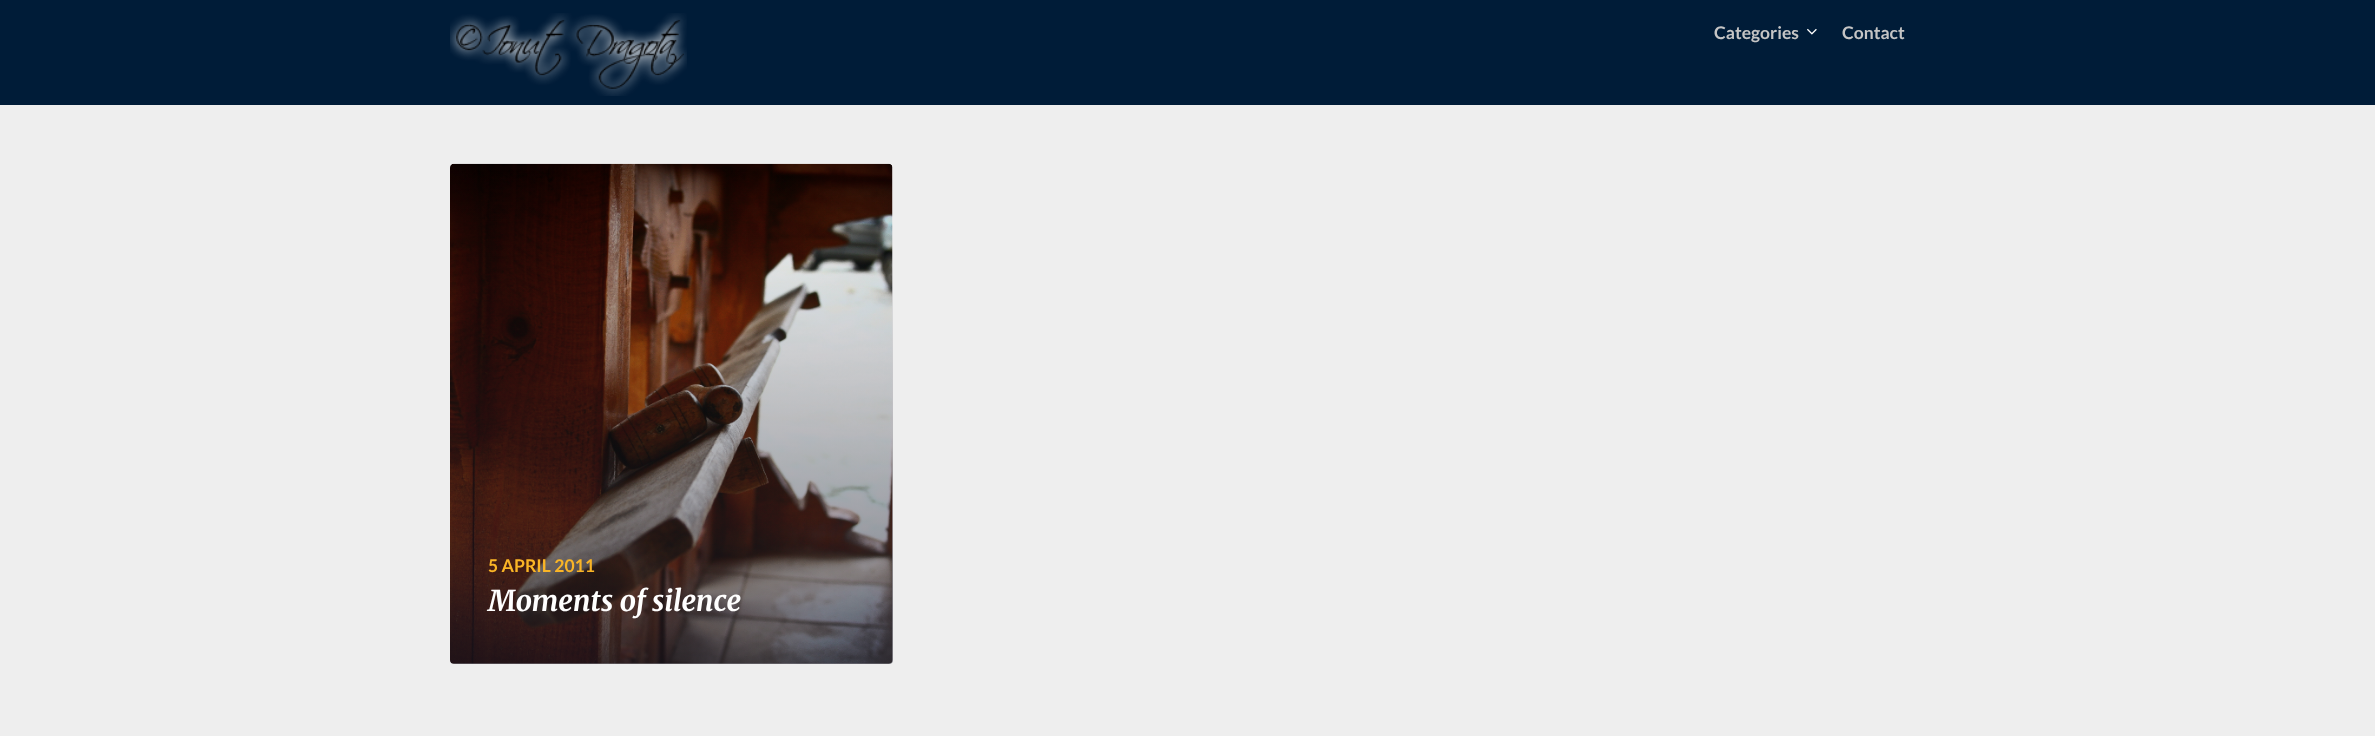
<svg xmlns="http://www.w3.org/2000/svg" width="2375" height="736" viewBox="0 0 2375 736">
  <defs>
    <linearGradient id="g1" gradientUnits="userSpaceOnUse" x1="671" y1="164" x2="671" y2="664"><stop offset="0" stop-color="rgb(32,30,44)" stop-opacity="0"/><stop offset="0.88" stop-color="rgb(32,30,44)" stop-opacity="0.51"/><stop offset="0.89" stop-color="rgb(32,30,44)" stop-opacity="0.52"/></linearGradient>
  </defs>
  <rect width="100%" height="100%" fill="rgb(238,238,238)"/>
  <rect x="0" y="0" width="2375" height="105" fill="rgb(0,28,56)"/>
  <image x="450" y="13" width="237" height="83" href="pic1.png"/>
  <text x="1714" y="39" font-family="Lato" font-size="17.5" font-weight="bold" fill="rgb(197,197,197)">Categories</text>
  <image x="1807" y="28" width="10" height="7" href="pic2.png"/>
  <text x="1842" y="39" font-family="Lato" font-size="17.5" font-weight="bold" fill="rgb(197,197,197)">Contact</text>
  <rect x="450" y="164" width="443" height="500" rx="4" fill="rgb(255,255,255)"/>
  <image x="450" y="163" width="443" height="501" href="pic3.png"/>
  <rect x="450" y="164" width="443" height="500" rx="4" fill="url(#g1)"/>
  <text x="488" y="572" font-family="Lato" font-size="17.5" font-weight="bold" fill="rgb(250,181,38)">5 APRIL 2011</text>
  <text x="488" y="611" font-family="Merriweather" font-size="28.75" font-weight="bold" font-style="italic" fill="rgb(255,255,255)">Moments of silence</text>
</svg>
